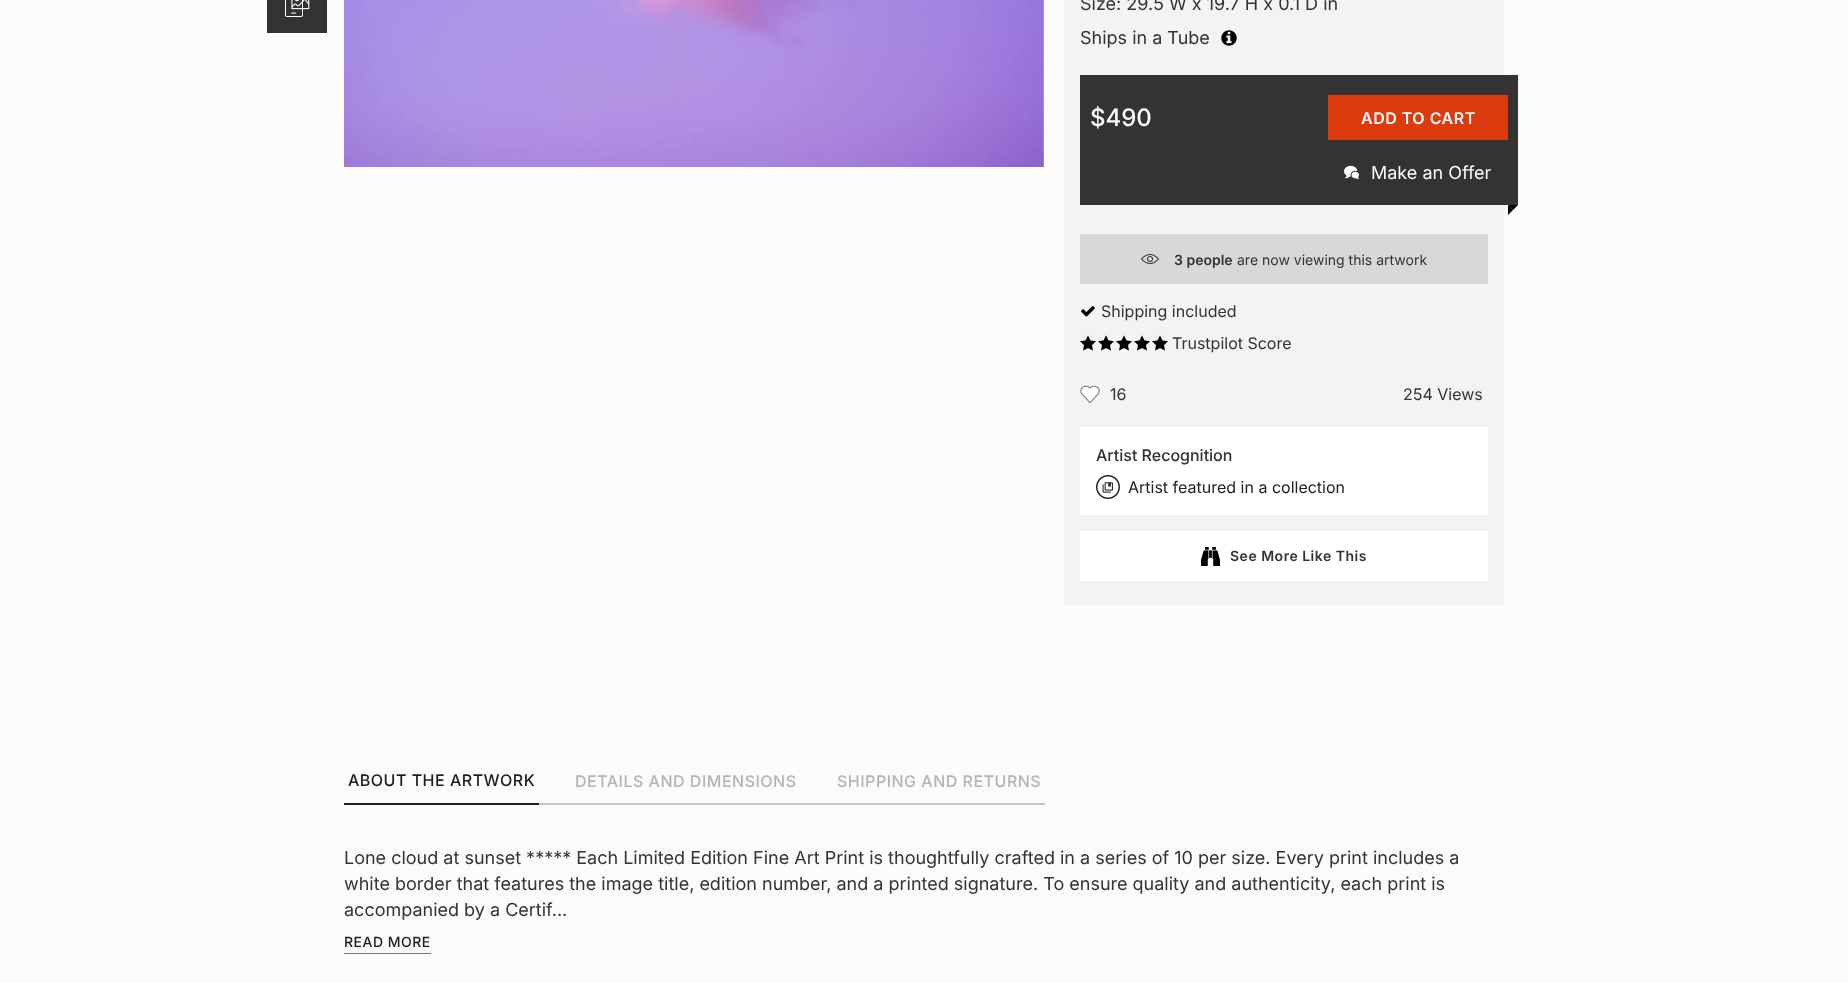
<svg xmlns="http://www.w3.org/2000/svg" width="1848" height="983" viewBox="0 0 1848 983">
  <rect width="100%" height="100%" fill="rgb(252,251,249)"/>
  <rect x="539" y="803" width="506" height="2" fill="rgb(197,196,194)"/>
  <rect x="267" y="0" width="60" height="33" fill="rgb(51,51,51)"/>
  <image x="285" y="0" width="25" height="17" href="pic1.png"/>
  <image x="344" y="0" width="700" height="167" href="pic2.png"/>
  <rect x="1064" y="0" width="440" height="605" fill="rgb(243,243,243)"/>
  <g font-family="Inter" font-size="18" fill="rgb(51,51,51)">
    <text>
      <tspan x="1080" y="10">Size: 29.5 W x 19.7 H x 0.1 D in</tspan>
      <tspan x="1080" y="44">Ships in a Tube</tspan>
    </text>
  </g>
  <image x="1221" y="30" width="16" height="16" href="pic3.png"/>
  <rect x="1080" y="75" width="438" height="130" fill="rgb(51,51,51)"/>
  <text x="1090" y="126" font-family="Inter" font-size="24" font-weight="500" fill="rgb(252,251,249)">$490</text>
  <rect x="1328" y="95" width="180" height="45" fill="rgb(220,58,15)"/>
  <text x="1361" y="124" font-family="Inter" font-size="16" font-weight="600" letter-spacing="0.5" fill="rgb(252,251,249)">ADD TO CART</text>
  <image x="1344" y="165" width="15" height="15" href="pic4.png"/>
  <text x="1371" y="179" font-family="Inter" font-size="18" fill="rgb(252,251,249)">Make an Offer</text>
  <path d="M1508 205H1518L1513 210Z" fill="rgb(0,0,0)"/>
  <path d="M1508 215V205L1513 210Z" fill="rgb(0,0,0)"/>
  <rect x="1080" y="234" width="408" height="50" fill="rgb(216,216,216)"/>
  <image x="1141" y="254" width="18" height="10" href="pic5.png"/>
  <text x="1174" y="265" font-family="Inter" font-size="14" font-weight="600" fill="rgb(51,51,51)">3 people</text>
  <text x="1237" y="265" font-family="Inter" font-size="14" fill="rgb(51,51,51)">are now viewing this artwork</text>
  <image x="1081" y="306" width="14" height="11" href="pic6.png"/>
  <text x="1101" y="317" font-family="Inter" font-size="16" fill="rgb(51,51,51)">Shipping included</text>
  <image x="1080" y="335" width="16" height="16" href="pic7.png"/>
  <image x="1098" y="335" width="16" height="16" href="pic7.png"/>
  <image x="1116" y="335" width="16" height="16" href="pic7.png"/>
  <image x="1134" y="335" width="16" height="16" href="pic7.png"/>
  <image x="1152" y="335" width="16" height="16" href="pic7.png"/>
  <text x="1172" y="349" font-family="Inter" font-size="16" fill="rgb(51,51,51)">Trustpilot Score</text>
  <image x="1080" y="385" width="20" height="19" href="pic8.png"/>
  <g font-family="Inter" font-size="16" fill="rgb(51,51,51)">
    <text x="1110" y="400">16</text>
    <text x="1403" y="400">254 Views</text>
  </g>
  <rect x="1080" y="427" width="408" height="88" fill="rgb(255,255,255)"/>
  <text x="1096" y="461" font-family="Inter" font-size="16" font-weight="500" fill="rgb(51,51,51)">Artist Recognition</text>
  <image x="1096" y="475" width="24" height="24" href="pic9.png"/>
  <text x="1128" y="493" font-family="Inter" font-size="16" fill="rgb(30,30,30)">Artist featured in a collection</text>
  <rect x="1080" y="531" width="408" height="50" fill="rgb(255,255,255)"/>
  <image x="1201" y="547" width="19" height="19" href="pic10.png"/>
  <text x="1230" y="561" font-family="Inter" font-size="14" font-weight="600" letter-spacing="0.5" fill="rgb(51,51,51)">See More Like This</text>
  <rect x="344" y="803" width="195" height="2" fill="rgb(30,30,30)"/>
  <text x="348" y="786" font-family="Inter" font-size="16" font-weight="500" letter-spacing="0.5" fill="rgb(30,30,30)">ABOUT THE ARTWORK</text>
  <g font-family="Inter" font-size="16" font-weight="500" letter-spacing="0.5" fill="rgb(180,180,180)">
    <text x="575" y="787">DETAILS AND DIMENSIONS</text>
    <text x="837" y="787">SHIPPING AND RETURNS</text>
  </g>
  <g font-family="Inter" font-size="18" fill="rgb(51,51,51)">
    <text>
      <tspan x="344" y="864">Lone cloud at sunset ***** Each Limited Edition Fine Art Print is thoughtfully crafted in a series of 10 per size. Every print includes a</tspan>
      <tspan x="344" y="890">white border that features the image title, edition number, and a printed signature. To ensure quality and authenticity, each print is</tspan>
      <tspan x="344" y="916">accompanied by a Certif...</tspan>
    </text>
  </g>
  <text x="344" y="947" font-family="Inter" font-size="14" font-weight="500" letter-spacing="0.5" fill="rgb(30,30,30)">READ MORE</text>
  <rect x="344" y="953" width="87" height="1" fill="rgb(115,115,115)"/>
</svg>
